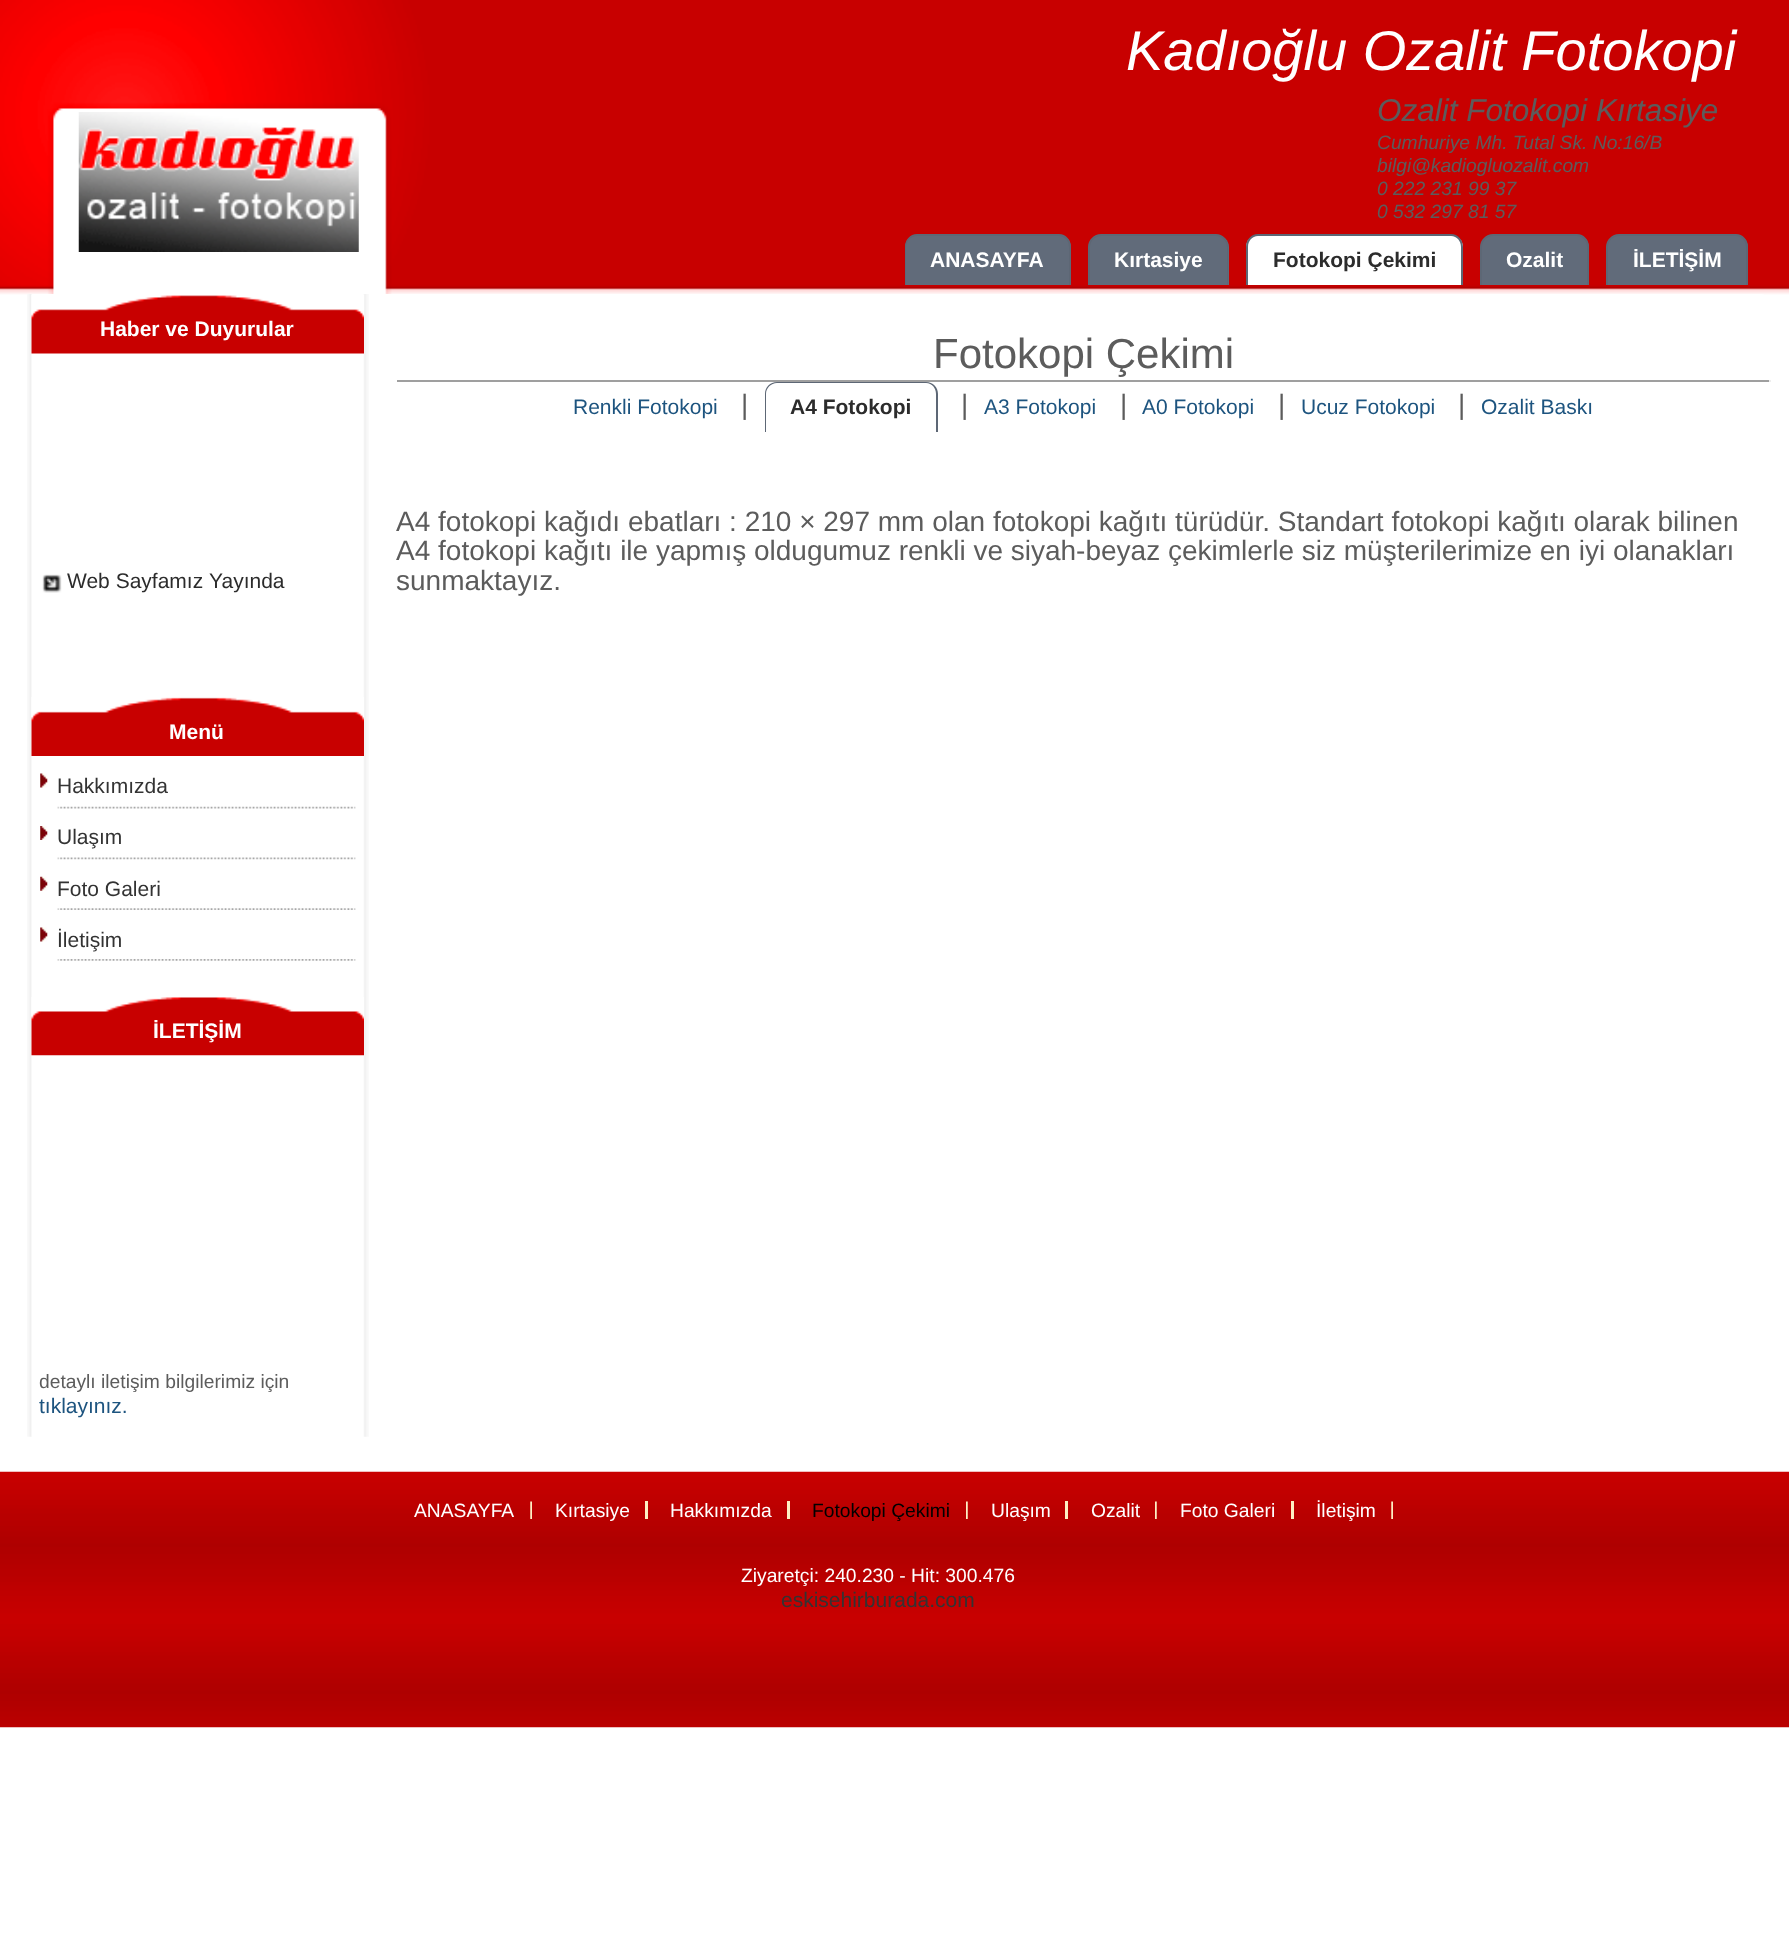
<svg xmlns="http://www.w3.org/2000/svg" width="1789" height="1947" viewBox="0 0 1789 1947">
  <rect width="100%" height="100%" fill="rgb(255,255,255)"/>
  <image x="0" y="0" width="1789" height="303" href="pic1.png"/>
  <image x="78" y="112" width="281" height="140" href="pic2.png"/>
  <text x="1126" y="70" font-family="Liberation Sans" font-size="56" font-style="italic" fill="rgb(255,255,255)">Kadıoğlu Ozalit Fotokopi</text>
  <text x="1377" y="121" font-family="Liberation Sans" font-size="31.5" font-style="italic" fill="rgb(92,92,92)">Ozalit Fotokopi Kırtasiye</text>
  <g font-family="Liberation Sans" font-size="19.25" font-style="italic" fill="rgb(92,92,92)">
    <text>
      <tspan x="1377" y="149">Cumhuriye Mh. Tutal Sk. No:16/B</tspan>
      <tspan x="1377" y="172">bilgi@kadiogluozalit.com</tspan>
      <tspan x="1377" y="195">0 222 231 99 37</tspan>
      <tspan x="1377" y="218">0 532 297 81 57</tspan>
    </text>
  </g>
  <path d="M917 235H1059C1065.5 235 1071 240.5 1071 247V285H905V247C905 240.5 910.5 235 917 235Z" fill="rgb(97,107,122)"/>
  <path d="M917 234H1059C1066 234 1071 240 1071 247V285H905V247C905 240 910 234 917 234ZM917 236H1059C1065 236 1069 241 1069 247V285H906V247C906 241 911 236 917 236Z" fill="rgb(93,103,117)" fill-rule="evenodd"/>
  <text x="930" y="267" font-family="Liberation Sans" font-size="21" font-weight="bold" fill="rgb(255,255,255)">ANASAYFA</text>
  <path d="M1101 235H1217C1223.5 235 1229 240.5 1229 247V285H1089V247C1089 240.5 1094.5 235 1101 235Z" fill="rgb(97,107,122)"/>
  <path d="M1101 234H1216C1223 234 1228 240 1228 247V285H1088V247C1088 240 1094 234 1101 234ZM1101 236H1216C1222 236 1227 241 1227 247V285H1090V247C1090 241 1095 236 1101 236Z" fill="rgb(93,103,117)" fill-rule="evenodd"/>
  <text x="1114" y="267" font-family="Liberation Sans" font-size="21" font-weight="bold" fill="rgb(255,255,255)">Kırtasiye</text>
  <path d="M1258 235H1451C1457.5 235 1463 240.5 1463 247V285H1246V247C1246 240.5 1251.5 235 1258 235Z" fill="rgb(255,255,255)"/>
  <path d="M1258 234H1451C1458 234 1463 240 1463 247V285H1246V247C1246 240 1251 234 1258 234ZM1258 236H1451C1457 236 1461 241 1461 247V285H1248V247C1248 241 1252 236 1258 236Z" fill="rgb(93,103,117)" fill-rule="evenodd"/>
  <text x="1273" y="267" font-family="Liberation Sans" font-size="21" font-weight="bold" fill="rgb(44,44,44)">Fotokopi Çekimi</text>
  <path d="M1493 235H1577C1583.5 235 1589 240.5 1589 247V285H1481V247C1481 240.5 1486.5 235 1493 235Z" fill="rgb(97,107,122)"/>
  <path d="M1493 234H1577C1584 234 1589 240 1589 247V285H1480V247C1480 240 1486 234 1493 234ZM1493 236H1577C1583 236 1587 241 1587 247V285H1482V247C1482 241 1487 236 1493 236Z" fill="rgb(93,103,117)" fill-rule="evenodd"/>
  <text x="1506" y="267" font-family="Liberation Sans" font-size="21" font-weight="bold" fill="rgb(255,255,255)">Ozalit</text>
  <path d="M1619 235H1736C1742.5 235 1748 240.5 1748 247V285H1607V247C1607 240.5 1612.5 235 1619 235Z" fill="rgb(97,107,122)"/>
  <path d="M1619 234H1736C1743 234 1748 240 1748 247V285H1606V247C1606 240 1612 234 1619 234ZM1619 236H1736C1742 236 1746 241 1746 247V285H1608V247C1608 241 1613 236 1619 236Z" fill="rgb(93,103,117)" fill-rule="evenodd"/>
  <text x="1633" y="267" font-family="Liberation Sans" font-size="21" font-weight="bold" fill="rgb(255,255,255)">İLETİŞİM</text>
  <rect x="21" y="294" width="1750" height="1160" rx="11" fill="rgb(255,255,255)"/>
  <image x="27" y="294" width="342" height="1143" href="pic3.png"/>
  <image x="31" y="295" width="333" height="59" href="pic4.png"/>
  <text x="100" y="336" font-family="Liberation Sans" font-size="21" font-weight="bold" fill="rgb(255,255,255)">Haber ve Duyurular</text>
  <image x="42" y="574" width="20" height="19" href="pic5.png"/>
  <g font-family="Liberation Sans" font-size="21" fill="rgb(44,44,44)">
    <text x="67" y="588">Web Sayfamız</text>
    <text x="209" y="588">Yayında</text>
  </g>
  <image x="31" y="697" width="333" height="59" href="pic6.png"/>
  <text x="169" y="739" font-family="Liberation Sans" font-size="21" font-weight="bold" fill="rgb(255,255,255)">Menü</text>
  <image x="40" y="773" width="8" height="15" href="pic7.png"/>
  <image x="57" y="806" width="278" height="3" href="pic8.png"/>
  <text x="57" y="793" font-family="Liberation Sans" font-size="21" fill="rgb(51,51,51)">Hakkımızda</text>
  <image x="334" y="806" width="22" height="3" href="pic9.png"/>
  <image x="40" y="826" width="8" height="14" href="pic10.png"/>
  <image x="57" y="857" width="278" height="3" href="pic11.png"/>
  <text x="57" y="844" font-family="Liberation Sans" font-size="21" fill="rgb(51,51,51)">Ulaşım</text>
  <image x="334" y="857" width="22" height="3" href="pic12.png"/>
  <image x="40" y="876" width="8" height="15" href="pic13.png"/>
  <image x="57" y="908" width="278" height="2" href="pic14.png"/>
  <text x="57" y="896" font-family="Liberation Sans" font-size="21" fill="rgb(51,51,51)">Foto Galeri</text>
  <image x="334" y="908" width="22" height="2" href="pic15.png"/>
  <image x="40" y="927" width="8" height="15" href="pic7.png"/>
  <image x="57" y="959" width="278" height="2" href="pic16.png"/>
  <text x="57" y="947" font-family="Liberation Sans" font-size="21" fill="rgb(51,51,51)">İletişim</text>
  <image x="334" y="959" width="22" height="2" href="pic17.png"/>
  <image x="31" y="997" width="333" height="59" href="pic18.png"/>
  <text x="153" y="1038" font-family="Liberation Sans" font-size="21" font-weight="bold" fill="rgb(255,255,255)">İLETİŞİM</text>
  <text x="39" y="1388" font-family="Liberation Sans" font-size="19.25" fill="rgb(92,92,92)">detaylı iletişim bilgilerimiz için</text>
  <text x="39" y="1413" font-family="Liberation Sans" font-size="21" fill="rgb(29,84,127)">tıklayınız.</text>
  <text x="933" y="368" font-family="Liberation Sans" font-size="42" fill="rgb(92,92,92)">Fotokopi Çekimi</text>
  <rect x="397" y="380" width="1374" height="2" fill="rgb(159,159,159)"/>
  <rect x="1769" y="380" width="2" height="2" fill="rgb(238,238,238)"/>
  <text x="573" y="414" font-family="Liberation Sans" font-size="21" fill="rgb(29,84,127)">Renkli Fotokopi</text>
  <text x="741" y="414" font-family="Liberation Sans" font-size="28" fill="rgb(92,92,92)">|</text>
  <path d="M777 382H926C933 382 938 387 938 394V432H765V394C765 387 770 382 777 382ZM777 383H926C932 383 936 388 936 394V432H766V394C766 388 771 383 777 383Z" fill="rgb(93,103,117)" fill-rule="evenodd"/>
  <text x="790" y="414" font-family="Liberation Sans" font-size="21" font-weight="bold" fill="rgb(44,44,44)">A4 Fotokopi</text>
  <text x="961" y="414" font-family="Liberation Sans" font-size="28" fill="rgb(92,92,92)">|</text>
  <text x="984" y="414" font-family="Liberation Sans" font-size="21" fill="rgb(29,84,127)">A3 Fotokopi</text>
  <text x="1120" y="414" font-family="Liberation Sans" font-size="28" fill="rgb(92,92,92)">|</text>
  <text x="1142" y="414" font-family="Liberation Sans" font-size="21" fill="rgb(29,84,127)">A0 Fotokopi</text>
  <text x="1278" y="414" font-family="Liberation Sans" font-size="28" fill="rgb(92,92,92)">|</text>
  <text x="1301" y="414" font-family="Liberation Sans" font-size="21" fill="rgb(29,84,127)">Ucuz Fotokopi</text>
  <text x="1458" y="414" font-family="Liberation Sans" font-size="28" fill="rgb(92,92,92)">|</text>
  <text x="1481" y="414" font-family="Liberation Sans" font-size="21" fill="rgb(29,84,127)">Ozalit Baskı</text>
  <g font-family="Liberation Sans" font-size="28" fill="rgb(92,92,92)">
    <text>
      <tspan x="396" y="531">A4 fotokopi kağıdı ebatları : 210 × 297 mm olan fotokopi kağıtı türüdür. Standart fotokopi kağıtı olarak bilinen</tspan>
      <tspan x="396" y="560">A4 fotokopi kağıtı ile yapmış oldugumuz renkli ve siyah-beyaz çekimlerle siz müşterilerimize en iyi olanakları</tspan>
      <tspan x="396" y="590">sunmaktayız.</tspan>
    </text>
  </g>
  <image x="0" y="1471" width="1789" height="257" href="pic19.png"/>
  <image x="530" y="1501" width="2" height="18" href="pic20.png"/>
  <text x="414" y="1517" font-family="Liberation Sans" font-size="19.25" fill="rgb(255,255,255)">ANASAYFA</text>
  <rect x="645" y="1501" width="3" height="18" fill="rgb(253,239,196)"/>
  <text x="555" y="1517" font-family="Liberation Sans" font-size="19.25" fill="rgb(255,255,255)">Kırtasiye</text>
  <rect x="787" y="1501" width="3" height="18" fill="rgb(253,239,196)"/>
  <text x="670" y="1517" font-family="Liberation Sans" font-size="19.25" fill="rgb(255,255,255)">Hakkımızda</text>
  <image x="966" y="1501" width="2" height="18" href="pic21.png"/>
  <text x="812" y="1517" font-family="Liberation Sans" font-size="19.25" fill="rgb(0,0,0)">Fotokopi Çekimi</text>
  <rect x="1065" y="1501" width="3" height="18" fill="rgb(253,239,196)"/>
  <text x="991" y="1517" font-family="Liberation Sans" font-size="19.25" fill="rgb(255,255,255)">Ulaşım</text>
  <image x="1155" y="1501" width="2" height="18" href="pic21.png"/>
  <text x="1091" y="1517" font-family="Liberation Sans" font-size="19.25" fill="rgb(255,255,255)">Ozalit</text>
  <rect x="1291" y="1501" width="3" height="18" fill="rgb(253,239,196)"/>
  <text x="1180" y="1517" font-family="Liberation Sans" font-size="19.25" fill="rgb(255,255,255)">Foto Galeri</text>
  <image x="1391" y="1501" width="2" height="18" href="pic20.png"/>
  <g font-family="Liberation Sans" font-size="19.25" fill="rgb(255,255,255)">
    <text x="1316" y="1517">İletişim</text>
    <text x="741" y="1582">Ziyaretçi: 240.230 - Hit: 300.476</text>
  </g>
  <text x="781" y="1607" font-family="Liberation Sans" font-size="21" fill="rgb(51,51,51)">eskisehirburada.com</text>
</svg>
